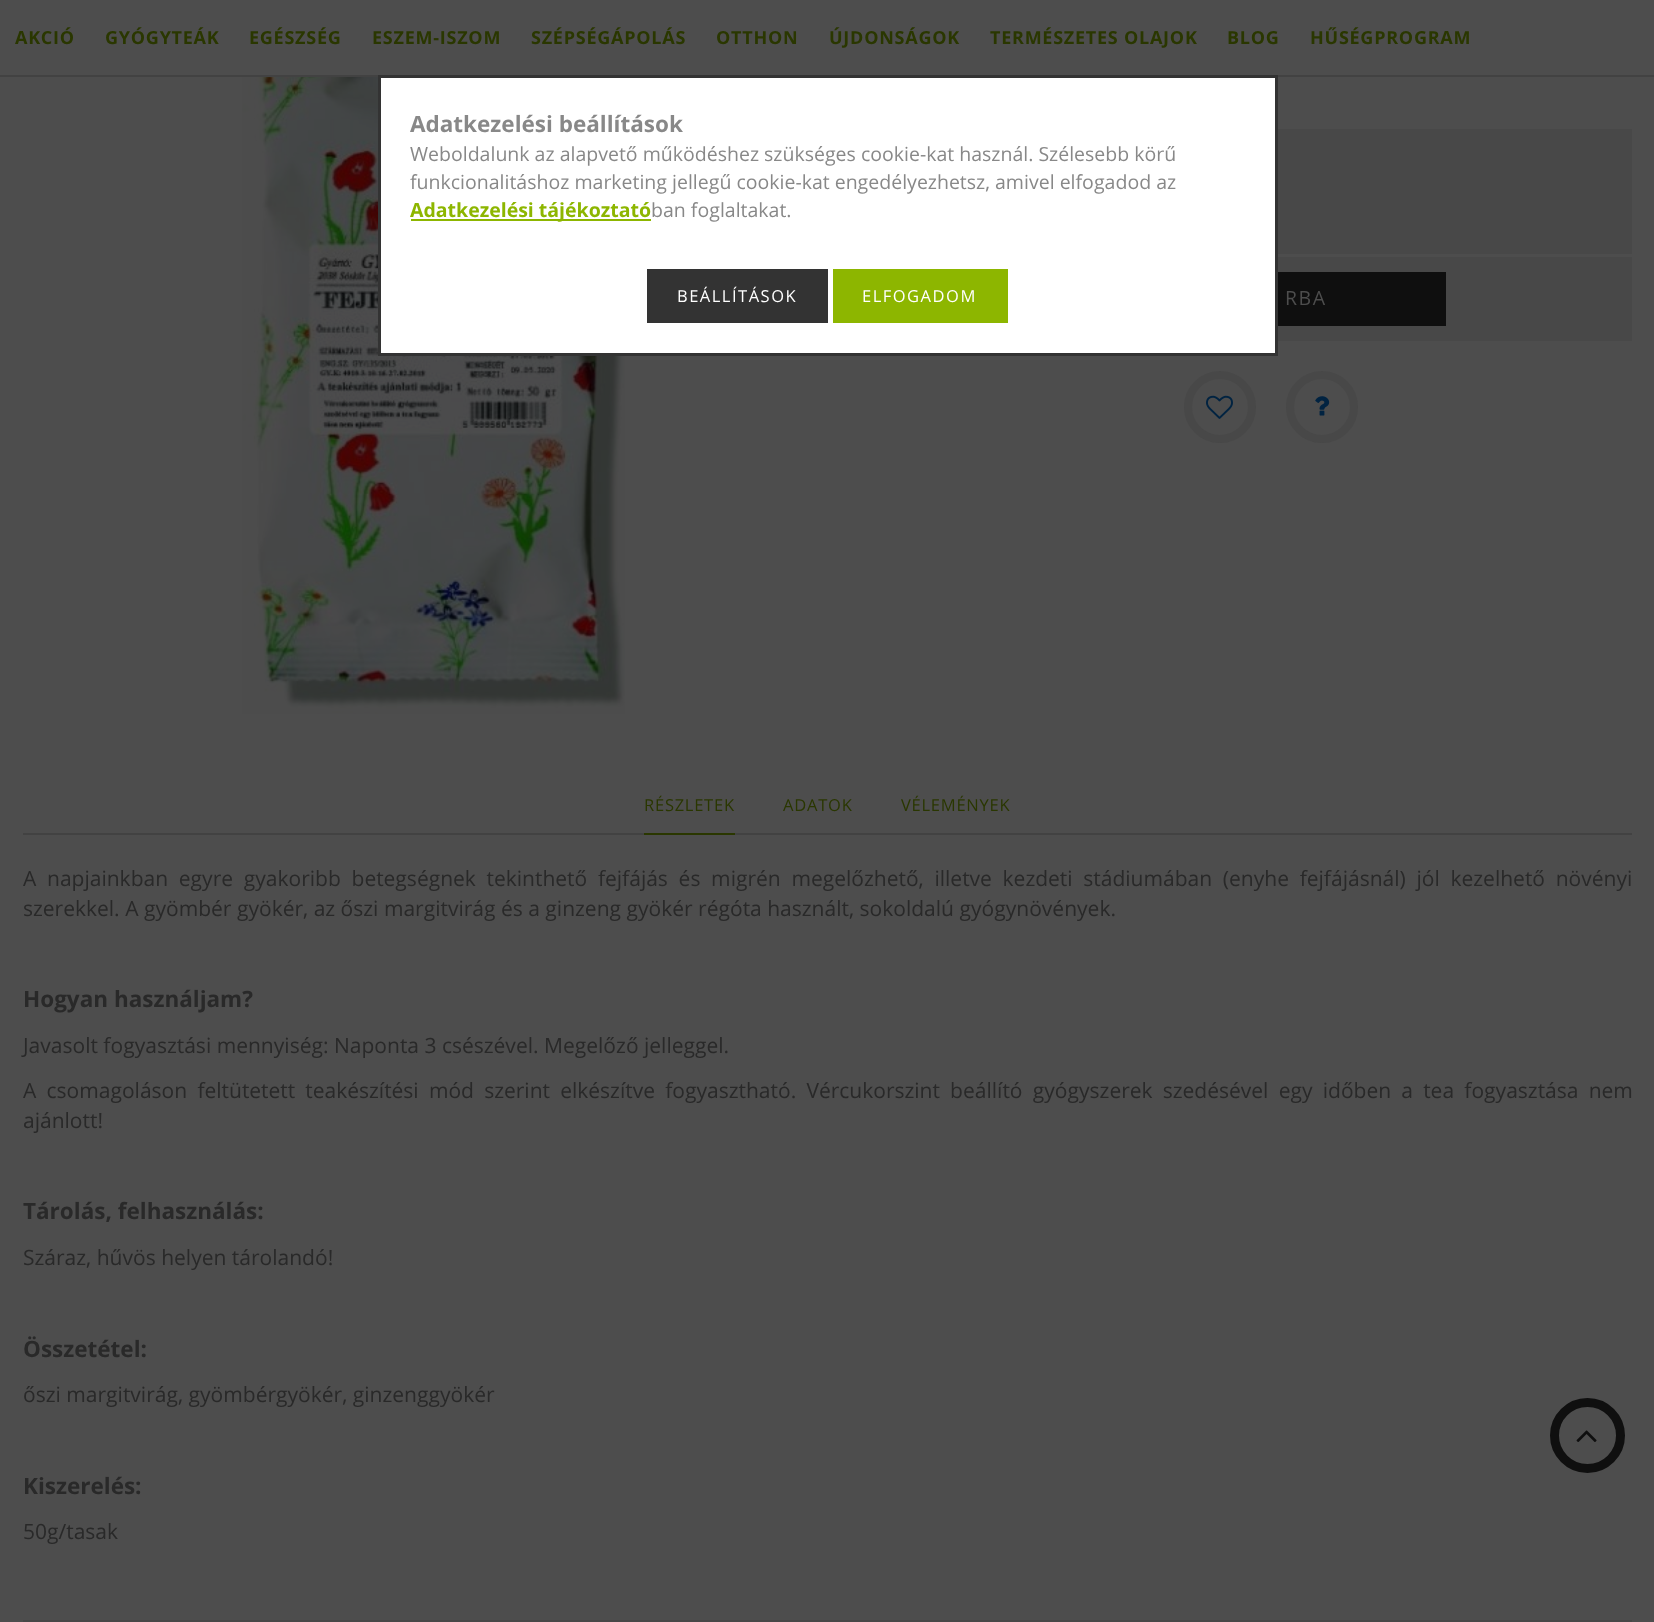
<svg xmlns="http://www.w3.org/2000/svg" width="1654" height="1622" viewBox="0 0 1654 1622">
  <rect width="100%" height="100%" fill="rgb(77,77,77)"/>
  <rect x="0" y="75" width="1654" height="2" fill="rgb(66,66,66)"/>
  <g font-family="Open Sans" font-size="18" font-weight="bold" letter-spacing="0.75" fill="rgb(42,55,0)">
    <text x="15" y="44">AKCIÓ</text>
    <text x="105" y="44">GYÓGYTEÁK</text>
    <text x="249" y="44">EGÉSZSÉG</text>
    <text x="372" y="44">ESZEM-ISZOM</text>
    <text x="531" y="44">SZÉPSÉGÁPOLÁS</text>
    <text x="716" y="44">OTTHON</text>
    <text x="829" y="44">ÚJDONSÁGOK</text>
    <text x="990" y="44">TERMÉSZETES OLAJOK</text>
    <text x="1227" y="44">BLOG</text>
    <text x="1310" y="44">HŰSÉGPROGRAM</text>
  </g>
  <image x="242" y="77" width="383" height="637" href="pic1.png"/>
  <rect x="1278" y="129" width="354" height="125" fill="rgb(72,72,72)"/>
  <rect x="1278" y="257" width="354" height="84" fill="rgb(72,72,72)"/>
  <rect x="1278" y="272" width="168" height="54" fill="rgb(15,15,15)"/>
  <text x="1285" y="305" font-family="Open Sans" font-size="19.5" letter-spacing="1.5" fill="rgb(77,77,77)">RBA</text>
  <circle cx="1220" cy="407" r="32" fill="none" stroke="rgb(72,72,72)" stroke-width="8"/>
  <image x="1206" y="395" width="27" height="24" href="pic2.png"/>
  <circle cx="1322" cy="407" r="32" fill="none" stroke="rgb(72,72,72)" stroke-width="8"/>
  <image x="1315" y="396" width="15" height="20" href="pic3.png"/>
  <rect x="23" y="833" width="1609" height="2" fill="rgb(66,66,66)"/>
  <rect x="644" y="833" width="91" height="2" fill="rgb(42,55,0)"/>
  <g font-family="Open Sans" font-size="16.5" letter-spacing="0.75" fill="rgb(42,55,0)">
    <text x="644" y="811">RÉSZLETEK</text>
    <text x="783" y="811">ADATOK</text>
    <text x="901" y="811">VÉLEMÉNYEK</text>
  </g>
  <g font-family="Open Sans" font-size="21" fill="rgb(41,41,41)">
    <text>
      <tspan x="23" y="886" word-spacing="5.25">A napjainkban egyre gyakoribb betegségnek tekinthető fejfájás és migrén megelőzhető, illetve kezdeti stádiumában (enyhe fejfájásnál) jól kezelhető növényi</tspan>
      <tspan x="23" y="916">szerekkel. A gyömbér gyökér, az őszi margitvirág és a ginzeng gyökér régóta használt, sokoldalú gyógynövények.</tspan>
    </text>
  </g>
  <text x="23" y="1007" font-family="Open Sans" font-size="22.5" font-weight="bold" fill="rgb(41,41,41)">Hogyan használjam?</text>
  <g font-family="Open Sans" font-size="21" fill="rgb(41,41,41)">
    <text x="23" y="1053">Javasolt fogyasztási mennyiség: Naponta 3 csészével. Megelőző jelleggel.</text>
    <text>
      <tspan x="23" y="1098" word-spacing="4.75">A csomagoláson feltütetett teakészítési mód szerint elkészítve fogyasztható. Vércukorszint beállító gyógyszerek szedésével egy időben a tea fogyasztása nem</tspan>
      <tspan x="23" y="1128">ajánlott!</tspan>
    </text>
  </g>
  <text x="23" y="1219" font-family="Open Sans" font-size="22.5" font-weight="bold" fill="rgb(41,41,41)">Tárolás, felhasználás:</text>
  <text x="23" y="1265" font-family="Open Sans" font-size="21" fill="rgb(41,41,41)">Száraz, hűvös helyen tárolandó!</text>
  <text x="23" y="1357" font-family="Open Sans" font-size="22.5" font-weight="bold" fill="rgb(41,41,41)">Összetétel:</text>
  <text x="23" y="1402" font-family="Open Sans" font-size="21" fill="rgb(41,41,41)">őszi margitvirág, gyömbérgyökér, ginzenggyökér</text>
  <text x="23" y="1494" font-family="Open Sans" font-size="22.5" font-weight="bold" fill="rgb(41,41,41)">Kiszerelés:</text>
  <text x="23" y="1539" font-family="Open Sans" font-size="21" fill="rgb(41,41,41)">50g/tasak</text>
  <rect x="23" y="1620" width="1609" height="2" fill="rgb(71,71,71)"/>
  <rect x="379.5" y="76.5" width="897" height="278" fill="rgb(255,255,255)" stroke="rgb(51,51,51)" stroke-width="3"/>
  <text x="410" y="132" font-family="Open Sans" font-size="22.5" font-weight="bold" fill="rgb(136,136,136)">Adatkezelési beállítások</text>
  <g font-family="Open Sans" font-size="19.5" fill="rgb(136,136,136)">
    <text>
      <tspan x="410" y="161">Weboldalunk az alapvető működéshez szükséges cookie-kat használ. Szélesebb körű</tspan>
      <tspan x="410" y="189">funkcionalitáshoz marketing jellegű cookie-kat engedélyezhetsz, amivel elfogadod az</tspan>
    </text>
  </g>
  <rect x="411" y="219" width="240" height="2" fill="rgb(141,182,0)"/>
  <text x="410" y="217" font-family="Open Sans" font-size="19.5" font-weight="bold" fill="rgb(141,182,0)">Adatkezelési tájékoztató</text>
  <text x="651" y="217" font-family="Open Sans" font-size="19.5" fill="rgb(136,136,136)">ban foglaltakat.</text>
  <rect x="647" y="269" width="181" height="54" fill="rgb(51,51,51)"/>
  <text x="677" y="302" font-family="Open Sans" font-size="16.5" letter-spacing="1.5" fill="rgb(255,255,255)">BEÁLLÍTÁSOK</text>
  <rect x="833" y="269" width="175" height="54" fill="rgb(141,182,0)"/>
  <text x="862" y="302" font-family="Open Sans" font-size="16.5" letter-spacing="1.5" fill="rgb(255,255,255)">ELFOGADOM</text>
  <circle cx="1587.5" cy="1435.5" r="33" fill="none" stroke="rgb(15,15,15)" stroke-width="9"/>
  <image x="1576" y="1430" width="21" height="12" href="pic4.png"/>
</svg>
